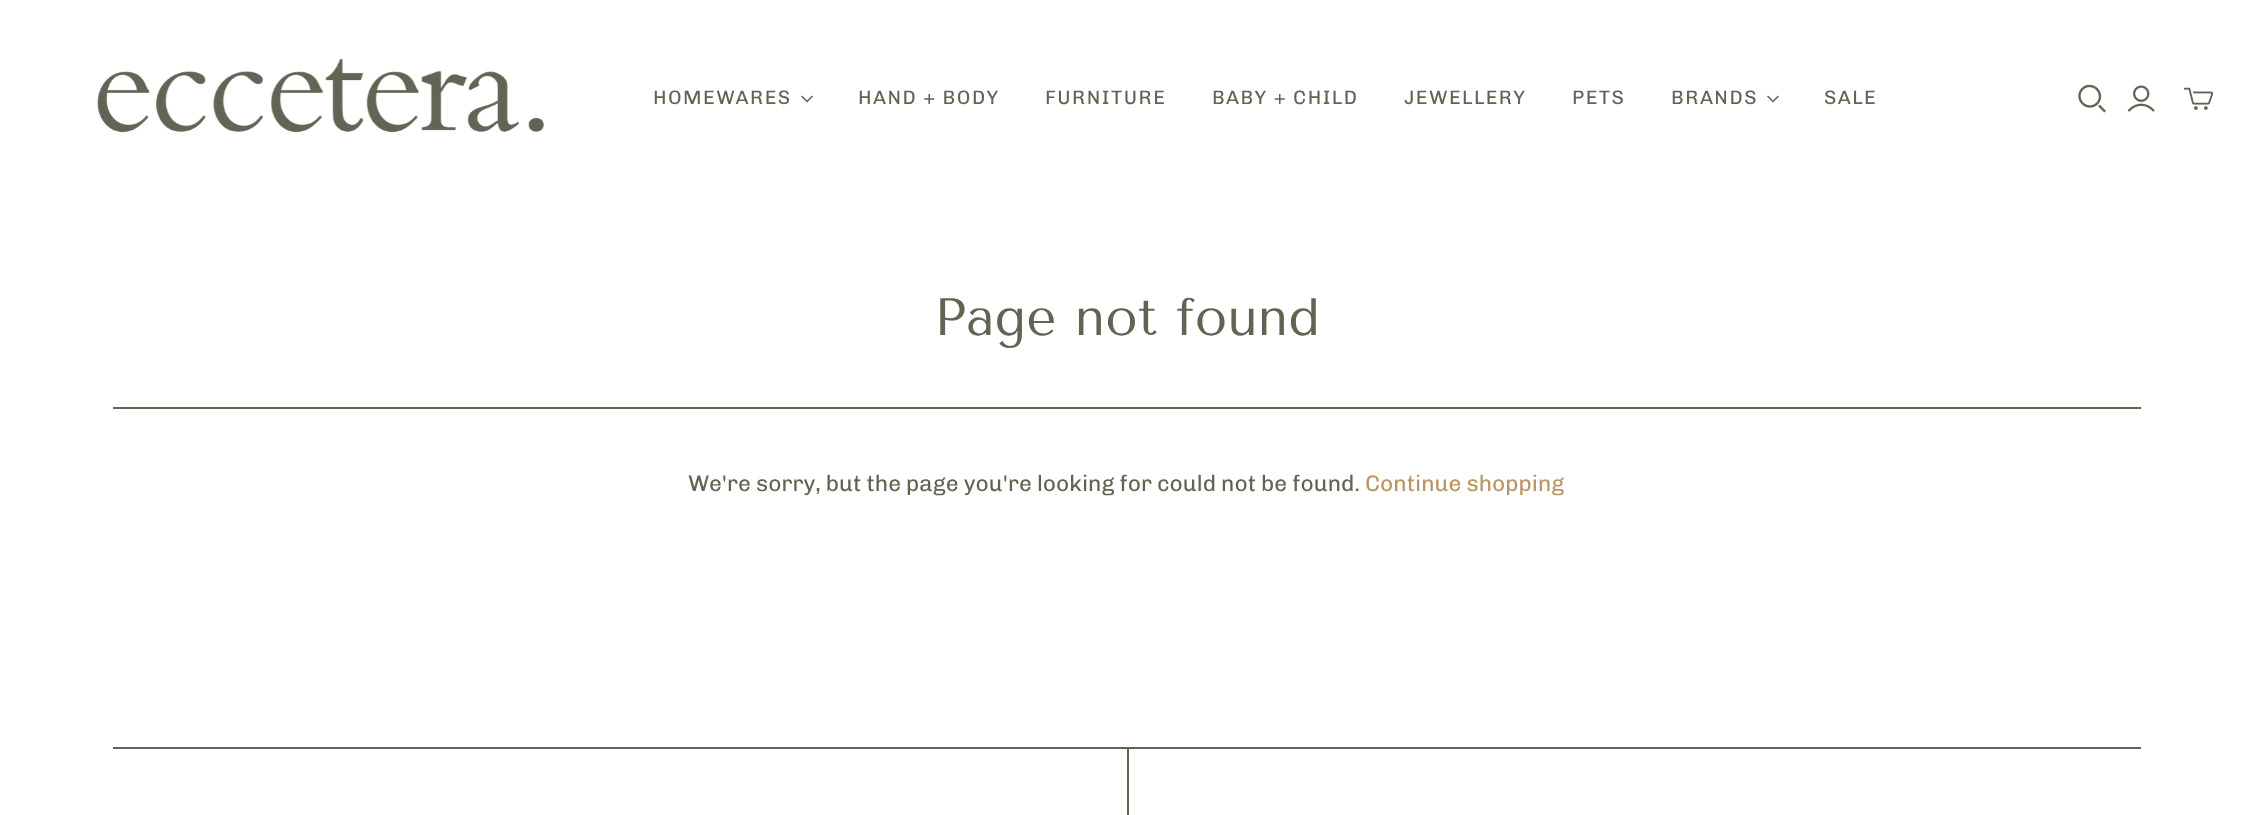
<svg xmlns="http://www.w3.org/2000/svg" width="2252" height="815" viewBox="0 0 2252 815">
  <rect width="100%" height="100%" fill="rgb(255,255,255)"/>
  <image x="97" y="59" width="447" height="74" href="pic1.png"/>
  <text x="653" y="104" font-family="Chivo" font-size="19.5" letter-spacing="1.5" fill="rgb(99,99,84)">HOMEWARES</text>
  <image x="801" y="95" width="12" height="8" href="pic2.png"/>
  <g font-family="Chivo" font-size="19.5" letter-spacing="1.5" fill="rgb(99,99,84)">
    <text x="858" y="104">HAND + BODY</text>
    <text x="1045" y="104">FURNITURE</text>
    <text x="1212" y="104">BABY + CHILD</text>
    <text x="1404" y="104">JEWELLERY</text>
    <text x="1572" y="104">PETS</text>
    <text x="1671" y="104">BRANDS</text>
  </g>
  <image x="1767" y="95" width="12" height="8" href="pic2.png"/>
  <text x="1824" y="104" font-family="Chivo" font-size="19.5" letter-spacing="1.5" fill="rgb(99,99,84)">SALE</text>
  <image x="2078" y="84" width="28" height="29" href="pic3.png"/>
  <image x="2127" y="85" width="28" height="27" href="pic4.png"/>
  <image x="2184" y="87" width="30" height="23" href="pic5.png"/>
  <rect x="113" y="407" width="2028" height="2" fill="rgb(99,99,84)"/>
  <text x="934" y="335" font-family="Tenor Sans" font-size="52.5" fill="rgb(99,99,84)">Page not found</text>
  <text x="688" y="491" font-family="Chivo" font-size="22.5" fill="rgb(99,99,84)">We're sorry, but the page you're looking for could not be found.</text>
  <text x="1365" y="491" font-family="Chivo" font-size="22.5" fill="rgb(187,148,99)">Continue shopping</text>
  <rect x="113" y="747" width="2028" height="2" fill="rgb(99,99,84)"/>
  <rect x="1127" y="749" width="2" height="66" fill="rgb(99,99,84)"/>
</svg>
